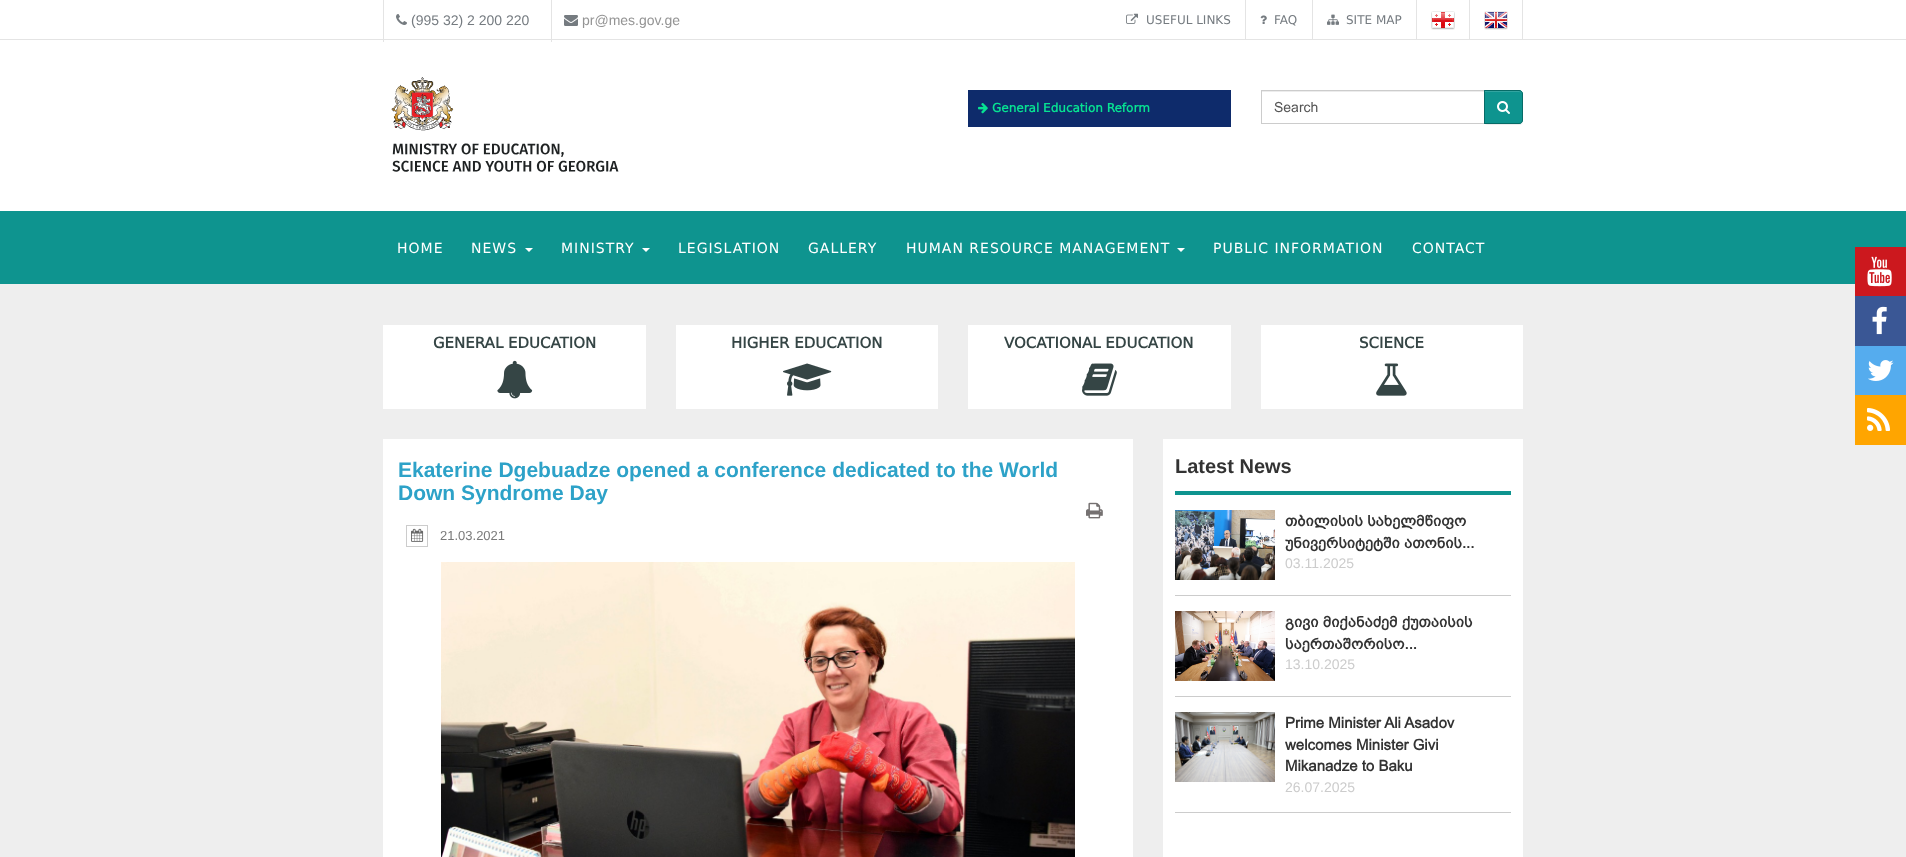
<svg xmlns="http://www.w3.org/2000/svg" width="1906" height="857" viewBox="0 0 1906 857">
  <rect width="100%" height="100%" fill="rgb(238,238,238)"/>
  <rect x="0" y="0" width="1906" height="211" fill="rgb(255,255,255)"/>
  <rect x="0" y="39" width="1906" height="1" fill="rgb(228,228,228)"/>
  <rect x="383" y="0" width="1" height="42" fill="rgb(228,228,228)"/>
  <image x="396" y="14" width="11" height="11" href="pic1.png"/>
  <text x="411" y="25" font-family="Liberation Sans" font-size="14" fill="rgb(117,123,128)">(995 32) 2 200 220</text>
  <rect x="551" y="0" width="1" height="42" fill="rgb(228,228,228)"/>
  <image x="564" y="15" width="14" height="11" href="pic2.png"/>
  <text x="582" y="25" font-family="Liberation Sans" font-size="14" fill="rgb(148,148,148)">pr@mes.gov.ge</text>
  <rect x="1245" y="0" width="1" height="40" fill="rgb(228,228,228)"/>
  <image x="1126" y="13" width="12" height="11" href="pic3.png"/>
  <text x="1146" y="24" font-family="'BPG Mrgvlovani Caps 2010'" font-size="12" fill="rgb(117,123,128)">USEFUL LINKS</text>
  <rect x="1312" y="0" width="1" height="40" fill="rgb(228,228,228)"/>
  <image x="1260" y="15" width="7" height="9" href="pic4.png"/>
  <text x="1274" y="24" font-family="'BPG Mrgvlovani Caps 2010'" font-size="12" fill="rgb(117,123,128)">FAQ</text>
  <rect x="1416" y="0" width="1" height="40" fill="rgb(228,228,228)"/>
  <image x="1327" y="14" width="12" height="11" href="pic5.png"/>
  <text x="1346" y="24" font-family="'BPG Mrgvlovani Caps 2010'" font-size="12" fill="rgb(117,123,128)">SITE MAP</text>
  <rect x="1469" y="0" width="1" height="40" fill="rgb(228,228,228)"/>
  <image x="1431" y="11" width="24" height="19" href="pic6.png"/>
  <rect x="1522" y="0" width="1" height="40" fill="rgb(228,228,228)"/>
  <image x="1484" y="11" width="24" height="19" href="pic7.png"/>
  <image x="391" y="77" width="228" height="95" href="pic8.png"/>
  <rect x="968" y="90" width="263" height="37" fill="rgb(14,43,107)"/>
  <image x="978" y="103" width="10" height="11" href="pic9.png"/>
  <text x="992" y="112" font-family="'BPG Mrgvlovani Caps 2010'" font-size="12" font-weight="bold" fill="rgb(7,226,146)">General Education Reform</text>
  <rect x="1262" y="91" width="222" height="1" fill="rgb(236,236,236)"/>
  <rect x="1261.5" y="90.5" width="223" height="33" fill="none" stroke="rgb(204,204,204)"/>
  <text x="1274" y="112" font-family="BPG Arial" font-size="14" fill="rgb(85,85,85)">Search</text>
  <rect x="1484" y="91" width="39" height="34" rx="4" fill="rgba(0,0,0,0.07)" filter="blur(0.5px)"/>
  <path d="M1484 90H1519C1521 90 1523 92 1523 94V120C1523 122 1521 124 1519 124H1484Z" fill="rgb(14,148,143)"/>
  <path d="M1485 92H1519C1521 92 1522 93 1522 95V94C1522 92.5 1520.5 91 1519 91H1485Z" fill="rgb(50,164,160)"/>
  <path d="M1484.5 90.5H1519C1521 90.5 1522.5 92 1522.5 94V120C1522.5 122 1521 123.5 1519 123.5H1484.5Z" fill="none" stroke="rgb(7,107,103)"/>
  <image x="1497" y="101" width="13" height="13" href="pic10.png"/>
  <rect x="0" y="211" width="1906" height="73" fill="rgb(14,148,143)"/>
  <g font-family="'BPG Mrgvlovani Caps 2010'" font-size="14" letter-spacing="1" fill="rgb(255,255,255)">
    <text x="397" y="253">HOME</text>
    <text x="471" y="253">NEWS</text>
  </g>
  <path d="M525 248H533L529 252Z" fill="rgb(255,255,255)"/>
  <text x="561" y="253" font-family="'BPG Mrgvlovani Caps 2010'" font-size="14" letter-spacing="1" fill="rgb(255,255,255)">MINISTRY</text>
  <path d="M642 248H650L646 252Z" fill="rgb(255,255,255)"/>
  <g font-family="'BPG Mrgvlovani Caps 2010'" font-size="14" letter-spacing="1" fill="rgb(255,255,255)">
    <text x="678" y="253">LEGISLATION</text>
    <text x="808" y="253">GALLERY</text>
    <text x="906" y="253">HUMAN RESOURCE MANAGEMENT</text>
  </g>
  <path d="M1177 248H1185L1181 252Z" fill="rgb(255,255,255)"/>
  <g font-family="'BPG Mrgvlovani Caps 2010'" font-size="14" letter-spacing="1" fill="rgb(255,255,255)">
    <text x="1213" y="253">PUBLIC INFORMATION</text>
    <text x="1412" y="253">CONTACT</text>
  </g>
  <rect x="1855" y="247" width="51" height="49" fill="rgb(204,24,30)"/>
  <image x="1867" y="256" width="25" height="31" href="pic11.png"/>
  <rect x="1855" y="296" width="51" height="50" fill="rgb(58,87,149)"/>
  <image x="1872" y="306" width="15" height="29" href="pic12.png"/>
  <rect x="1855" y="346" width="51" height="49" fill="rgb(85,172,238)"/>
  <image x="1868" y="360" width="26" height="21" href="pic13.png"/>
  <rect x="1855" y="395" width="51" height="50" fill="rgb(255,165,0)"/>
  <image x="1867" y="408" width="23" height="23" href="pic14.png"/>
  <rect x="383" y="325" width="263" height="84" fill="rgb(255,255,255)"/>
  <text x="433" y="348" font-family="'BPG Mrgvlovani Caps 2010'" font-size="15" font-weight="bold" fill="rgb(53,69,69)">GENERAL EDUCATION</text>
  <image x="497" y="360" width="36" height="39" href="pic15.png"/>
  <rect x="676" y="325" width="262" height="84" fill="rgb(255,255,255)"/>
  <text x="731" y="348" font-family="'BPG Mrgvlovani Caps 2010'" font-size="15" font-weight="bold" fill="rgb(53,69,69)">HIGHER EDUCATION</text>
  <image x="783" y="363" width="49" height="33" href="pic16.png"/>
  <rect x="968" y="325" width="263" height="84" fill="rgb(255,255,255)"/>
  <text x="1004" y="348" font-family="'BPG Mrgvlovani Caps 2010'" font-size="15" font-weight="bold" fill="rgb(53,69,69)">VOCATIONAL EDUCATION</text>
  <image x="1082" y="363" width="35" height="33" href="pic17.png"/>
  <rect x="1261" y="325" width="262" height="84" fill="rgb(255,255,255)"/>
  <text x="1359" y="348" font-family="'BPG Mrgvlovani Caps 2010'" font-size="15" font-weight="bold" fill="rgb(53,69,69)">SCIENCE</text>
  <image x="1376" y="363" width="31" height="33" href="pic18.png"/>
  <rect x="383" y="439" width="750" height="418" fill="rgb(255,255,255)"/>
  <g font-family="Liberation Sans" font-size="21" font-weight="bold" fill="rgb(45,162,200)">
    <text>
      <tspan x="398" y="477">Ekaterine Dgebuadze opened a conference dedicated to the World</tspan>
      <tspan x="398" y="500">Down Syndrome Day</tspan>
    </text>
  </g>
  <image x="1086" y="502" width="17" height="17" href="pic19.png"/>
  <image x="1086" y="502" width="17" height="17" href="pic20.png"/>
  <rect x="406.5" y="525.5" width="21" height="21" fill="none" stroke="rgb(204,204,204)"/>
  <image x="411" y="528" width="13" height="14" href="pic21.png"/>
  <text x="440" y="540" font-family="Liberation Sans" font-size="13" fill="rgb(122,122,122)">21.03.2021</text>
  <image x="441" y="562" width="634" height="295" href="pic22.png"/>
  <rect x="1163" y="439" width="360" height="418" fill="rgb(255,255,255)"/>
  <rect x="1175" y="491" width="336" height="4" fill="rgb(14,148,143)"/>
  <text x="1175" y="473" font-family="Liberation Sans" font-size="20" font-weight="bold" fill="rgb(51,51,51)">Latest News</text>
  <rect x="1175" y="595" width="336" height="1" fill="rgb(204,204,204)"/>
  <image x="1175" y="510" width="100" height="70" href="pic23.png"/>
  <g font-family="BPG Arial" font-size="15" font-weight="bold" fill="rgb(51,51,51)">
    <text>
      <tspan x="1285" y="526">თბილისის სახელმწიფო</tspan>
      <tspan x="1285" y="548">უნივერსიტეტში ათონის...</tspan>
    </text>
  </g>
  <text x="1285" y="568" font-family="Liberation Sans" font-size="14" fill="rgb(204,204,204)">03.11.2025</text>
  <rect x="1175" y="696" width="336" height="1" fill="rgb(204,204,204)"/>
  <image x="1175" y="611" width="100" height="70" href="pic24.png"/>
  <g font-family="BPG Arial" font-size="15" font-weight="bold" fill="rgb(51,51,51)">
    <text>
      <tspan x="1285" y="627">გივი მიქანაძემ ქუთაისის</tspan>
      <tspan x="1285" y="649">საერთაშორისო...</tspan>
    </text>
  </g>
  <text x="1285" y="669" font-family="Liberation Sans" font-size="14" fill="rgb(204,204,204)">13.10.2025</text>
  <rect x="1175" y="812" width="336" height="1" fill="rgb(204,204,204)"/>
  <image x="1175" y="712" width="100" height="70" href="pic25.png"/>
  <g font-family="BPG Arial" font-size="15" font-weight="bold" fill="rgb(51,51,51)">
    <text>
      <tspan x="1285" y="728">Prime Minister Ali Asadov</tspan>
      <tspan x="1285" y="750">welcomes Minister Givi</tspan>
      <tspan x="1285" y="771">Mikanadze to Baku</tspan>
    </text>
  </g>
  <text x="1285" y="792" font-family="Liberation Sans" font-size="14" fill="rgb(204,204,204)">26.07.2025</text>
</svg>
